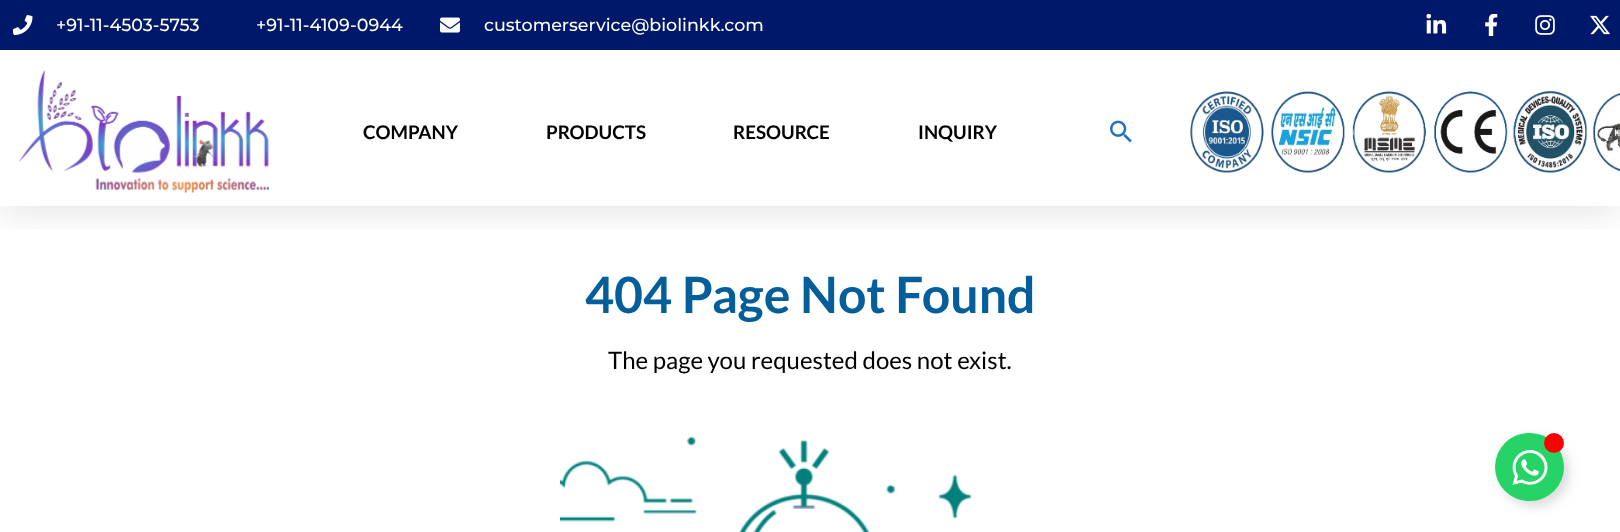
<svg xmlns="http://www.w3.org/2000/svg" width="1620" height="532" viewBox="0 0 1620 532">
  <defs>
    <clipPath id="clip1"><rect x="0" y="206" width="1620" height="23"/></clipPath>
  </defs>
  <rect width="100%" height="100%" fill="rgb(255,255,255)"/>
  <g clip-path="url(#clip1)">
    <rect x="0" y="6" width="1620" height="207" fill="rgba(0,0,0,0.1)" filter="blur(19px)"/>
  </g>
  <rect x="0" y="0" width="1620" height="50" fill="rgb(0,24,105)"/>
  <image x="13" y="15" width="20" height="20" href="pic1.png"/>
  <g font-family="Montserrat" font-size="17.5" font-weight="500" fill="rgb(255,255,255)">
    <text x="56" y="31">+91-11-4503-5753</text>
    <text x="256" y="31">+91-11-4109-0944</text>
  </g>
  <image x="440" y="17" width="20" height="16" href="pic2.png"/>
  <text x="484" y="31" font-family="Montserrat" font-size="17.5" font-weight="500" fill="rgb(255,255,255)">customerservice@biolinkk.com</text>
  <image x="1426" y="14" width="21" height="20" href="pic3.png"/>
  <image x="1485" y="14" width="13" height="22" href="pic4.png"/>
  <image x="1535" y="15" width="20" height="20" href="pic5.png"/>
  <image x="1590" y="15" width="20" height="20" href="pic6.png"/>
  <image x="18" y="70" width="251" height="123" href="pic7.png"/>
  <g font-family="Lato" font-size="18.75" font-weight="bold" fill="rgb(0,0,0)">
    <text x="363" y="139">COMPANY</text>
    <text x="546" y="139">PRODUCTS</text>
    <text x="733" y="139">RESOURCE</text>
    <text x="918" y="139">INQUIRY</text>
  </g>
  <image x="1110" y="120" width="22" height="23" href="pic8.png"/>
  <image x="1190" y="91" width="430" height="82" href="pic9.png"/>
  <text x="585" y="313" font-family="Lato" font-size="50" font-weight="bold" fill="rgb(4,94,155)">404 Page Not Found</text>
  <text x="608" y="369" font-family="Lato" font-size="24" fill="rgb(0,0,0)">The page you requested does not exist.</text>
  <image x="560" y="436" width="412" height="96" href="pic10.png"/>
  <rect x="1500" y="438" width="69" height="68" rx="34" fill="rgba(0,0,0,0.15)" filter="blur(6px)"/>
  <rect x="1495" y="433" width="69" height="68" rx="34" fill="rgb(37,211,102)"/>
  <image x="1512" y="450" width="36" height="35" href="pic11.png"/>
  <circle cx="1554" cy="443" r="10" fill="rgb(255,0,0)"/>
</svg>
